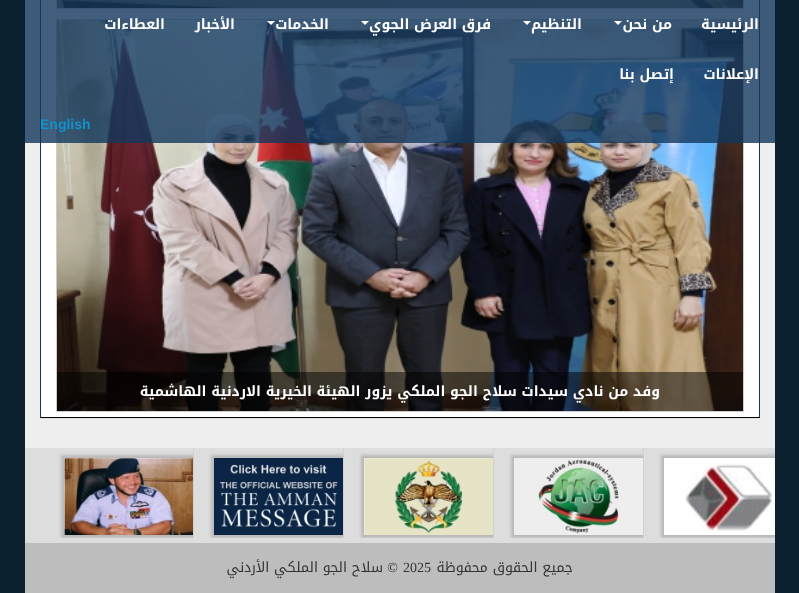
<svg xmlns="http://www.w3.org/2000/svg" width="799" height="593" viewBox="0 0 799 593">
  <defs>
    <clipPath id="clip1"><rect x="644" y="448" width="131" height="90"/></clipPath>
    <clipPath id="clip2"><rect x="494" y="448" width="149" height="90"/></clipPath>
    <clipPath id="clip3"><rect x="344" y="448" width="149" height="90"/></clipPath>
    <clipPath id="clip4"><rect x="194" y="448" width="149" height="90"/></clipPath>
    <clipPath id="clip5"><rect x="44" y="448" width="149" height="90"/></clipPath>
  </defs>
  <rect width="100%" height="100%" fill="rgb(11,32,47)"/>
  <rect x="25" y="0" width="750" height="448" fill="rgb(238,238,238)"/>
  <rect x="40" y="-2" width="720" height="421" fill="rgba(0,0,0,0.05)" filter="blur(0.5px)"/>
  <rect x="41" y="0" width="718" height="417" fill="rgb(255,255,255)"/>
  <rect x="759" y="0" width="1" height="418" fill="rgb(17,55,92)"/>
  <rect x="40" y="417" width="720" height="1" fill="rgb(0,0,0)"/>
  <rect x="40" y="0" width="1" height="418" fill="rgb(17,55,92)"/>
  <rect x="56.5" y="-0.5" width="687" height="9" fill="none" stroke="rgb(204,204,204)"/>
  <image x="57" y="0" width="686" height="8" href="pic1.png"/>
  <rect x="56.5" y="19.5" width="687" height="392" fill="none" stroke="rgb(204,204,204)"/>
  <image x="57" y="20" width="686" height="391" href="pic2.png"/>
  <rect x="25" y="0" width="750" height="143" fill="rgba(17,55,92,0.8)"/>
  <g font-family="Noto Kufi Arabic" font-size="14" font-weight="bold" direction="rtl" fill="rgb(255,255,255)">
    <text x="759" y="29">الرئيسية</text>
    <text x="672" y="29">من نحن</text>
  </g>
  <path d="M614 21H622L618 25Z" fill="rgb(255,255,255)"/>
  <text x="582" y="29" font-family="Noto Kufi Arabic" font-size="14" font-weight="bold" direction="rtl" fill="rgb(255,255,255)">التنظيم</text>
  <path d="M523 21H531L527 25Z" fill="rgb(255,255,255)"/>
  <text x="491" y="29" font-family="Noto Kufi Arabic" font-size="14" font-weight="bold" direction="rtl" fill="rgb(255,255,255)">فرق العرض الجوي</text>
  <path d="M361 21H369L365 25Z" fill="rgb(255,255,255)"/>
  <text x="329" y="29" font-family="Noto Kufi Arabic" font-size="14" font-weight="bold" direction="rtl" fill="rgb(255,255,255)">الخدمات</text>
  <path d="M267 21H275L271 25Z" fill="rgb(255,255,255)"/>
  <g font-family="Noto Kufi Arabic" font-size="14" font-weight="bold" direction="rtl" fill="rgb(255,255,255)">
    <text x="235" y="29">الأخبار</text>
    <text x="165" y="29">العطاءات</text>
    <text x="759" y="79">الإعلانات</text>
    <text x="674" y="79">إتصل بنا</text>
  </g>
  <text x="40" y="129" font-family="Liberation Sans" font-size="14" font-weight="bold" fill="rgb(17,145,202)">English</text>
  <rect x="57" y="372" width="686" height="39" fill="rgba(0,0,0,0.5)"/>
  <g font-family="Noto Kufi Arabic" font-size="14" font-weight="bold" direction="rtl" fill="rgb(255,255,255)">
    <text x="660" y="396">وفد من نادي سيدات سلاح الجو الملكي يزور الهيئة</text>
    <text x="312" y="396">الخيرية الاردنية الهاشمية</text>
  </g>
  <rect x="25" y="448" width="750" height="95" fill="rgb(221,221,221)"/>
  <rect x="25" y="543" width="750" height="50" fill="rgb(189,189,189)"/>
  <g clip-path="url(#clip1)">
    <rect x="661" y="455" width="135" height="83" fill="rgba(150,150,150,0.5)" filter="blur(1.5px)"/>
  </g>
  <image x="664" y="458" width="111" height="77" href="pic3.png"/>
  <rect x="643" y="448" width="1" height="90" fill="rgb(208,208,208)"/>
  <g clip-path="url(#clip2)">
    <rect x="511" y="455" width="135" height="83" fill="rgba(150,150,150,0.5)" filter="blur(1.5px)"/>
  </g>
  <image x="514" y="458" width="129" height="77" href="pic4.png"/>
  <rect x="493" y="448" width="1" height="90" fill="rgb(208,208,208)"/>
  <g clip-path="url(#clip3)">
    <rect x="361" y="455" width="135" height="83" fill="rgba(150,150,150,0.5)" filter="blur(1.5px)"/>
  </g>
  <image x="364" y="458" width="129" height="77" href="pic5.png"/>
  <rect x="343" y="448" width="1" height="90" fill="rgb(208,208,208)"/>
  <g clip-path="url(#clip4)">
    <rect x="211" y="455" width="135" height="83" fill="rgba(150,150,150,0.5)" filter="blur(1.5px)"/>
  </g>
  <image x="214" y="458" width="129" height="77" href="pic6.png"/>
  <rect x="193" y="448" width="1" height="90" fill="rgb(208,208,208)"/>
  <g clip-path="url(#clip5)">
    <rect x="61" y="455" width="135" height="83" fill="rgba(150,150,150,0.5)" filter="blur(1.5px)"/>
  </g>
  <image x="64" y="458" width="129" height="77" href="pic7.png"/>
  <text x="573" y="572" font-family="Noto Kufi Arabic" font-size="14" direction="rtl" fill="rgb(51,51,51)">جميع الحقوق محفوظة</text>
  <text x="403" y="572" font-family="Liberation Serif" font-size="14" fill="rgb(51,51,51)">2025</text>
  <text x="398" y="572" font-family="Liberation Serif" font-size="14" direction="rtl" fill="rgb(51,51,51)">©</text>
  <text x="383" y="572" font-family="Noto Kufi Arabic" font-size="14" direction="rtl" fill="rgb(51,51,51)">سلاح الجو الملكي الأردني</text>
</svg>
